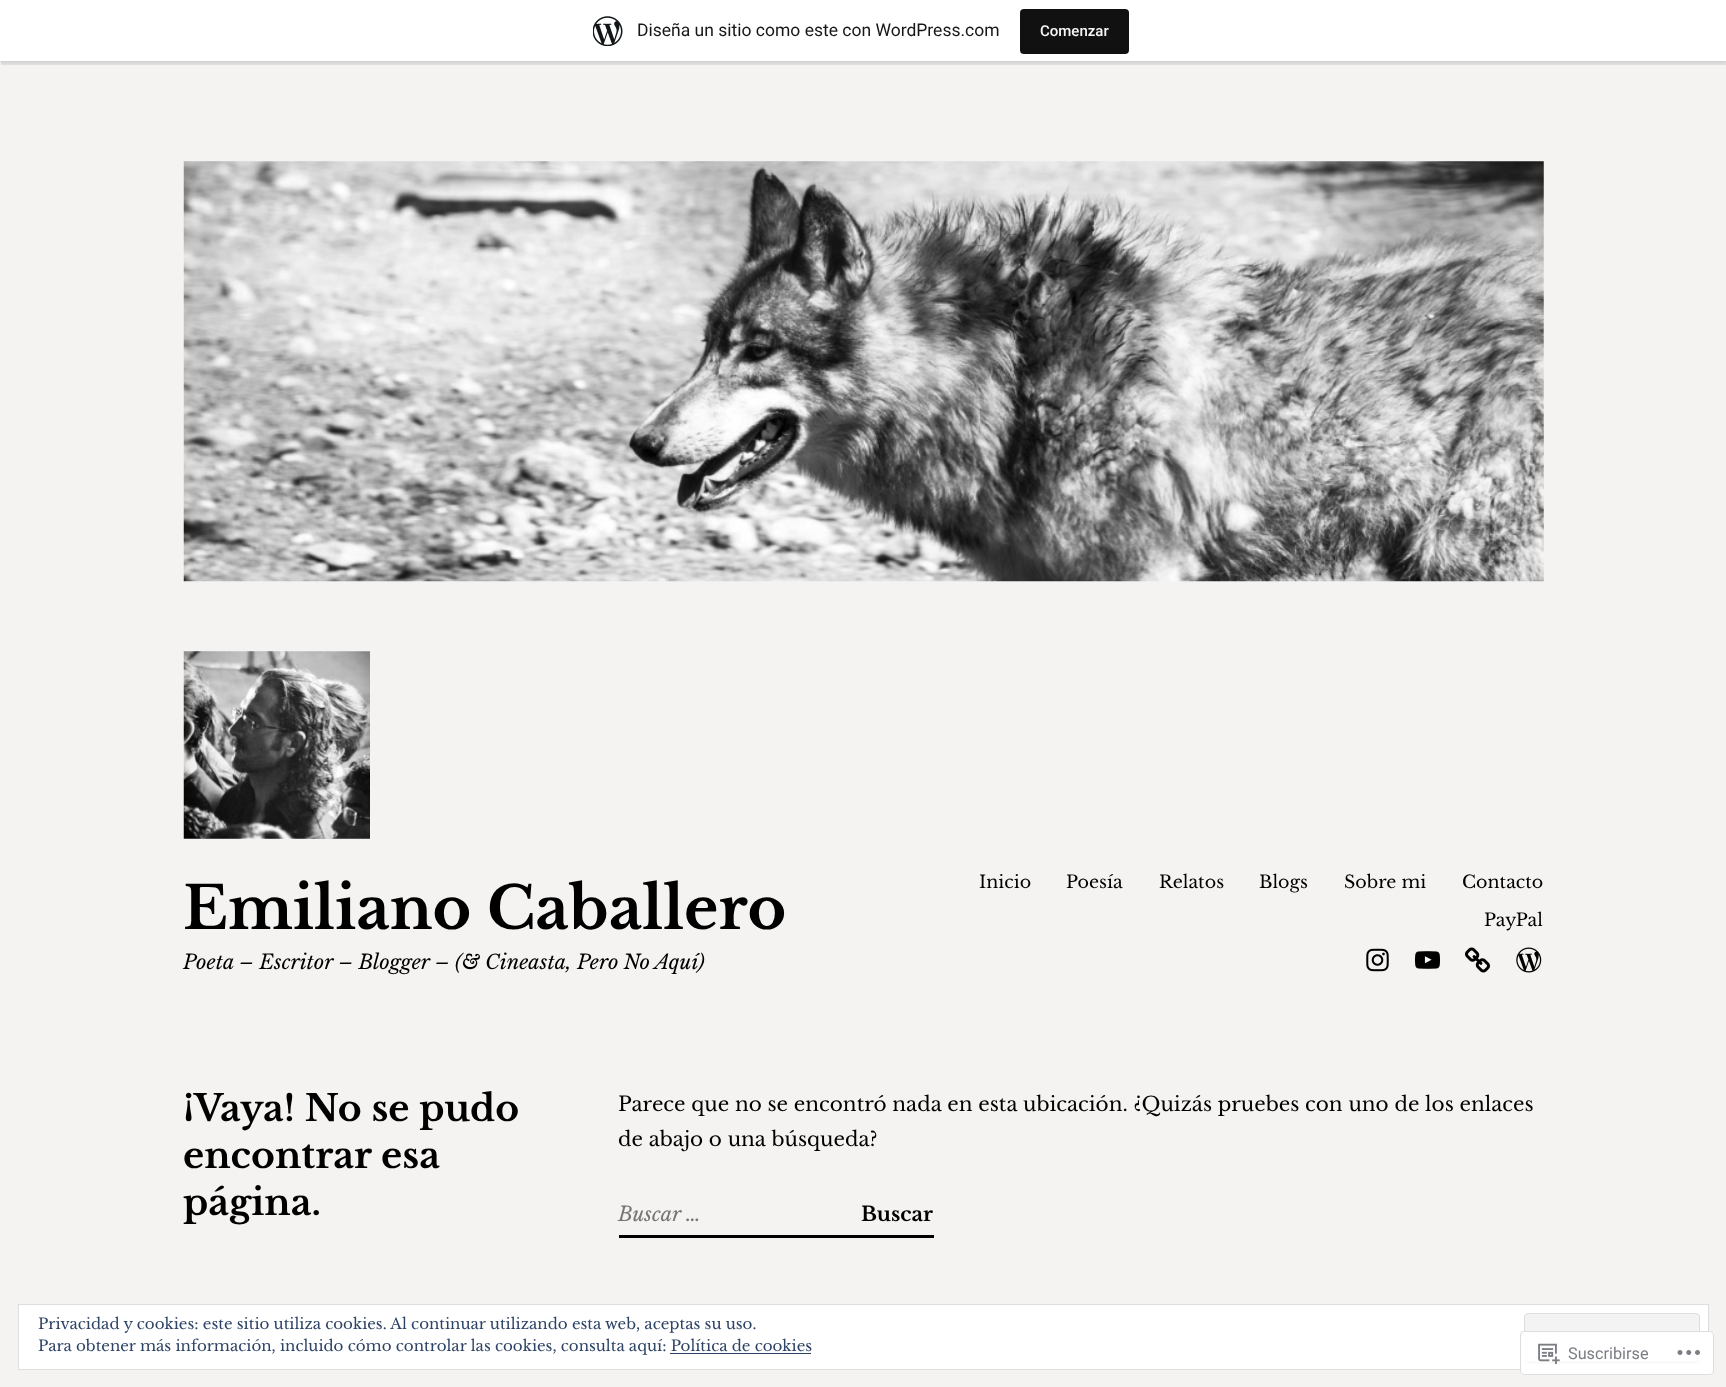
<svg xmlns="http://www.w3.org/2000/svg" width="1726" height="1387" viewBox="0 0 1726 1387">
  <rect width="100%" height="100%" fill="rgb(245,243,241)"/>
  <rect x="0" y="1" width="1726" height="62" fill="rgba(0,0,0,0.05)" filter="blur(1px)"/>
  <path d="M1 61V65H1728V4H1726V61Z" fill="rgba(0,0,0,0.08)"/>
  <rect x="0" y="0" width="1726" height="61" fill="rgb(255,255,255)"/>
  <image x="593" y="16" width="30" height="30" href="pic1.png"/>
  <text x="637" y="36" font-family="Roboto" font-size="17.5" fill="rgb(23,23,23)">Diseña un sitio como este con WordPress.com</text>
  <rect x="1020" y="9" width="109" height="45" rx="4" fill="rgb(17,17,17)"/>
  <text x="1040" y="36" font-family="Roboto" font-size="15" font-weight="500" fill="rgb(246,247,247)">Comenzar</text>
  <image x="183" y="161" width="1361" height="421" href="pic2.png"/>
  <image x="183" y="651" width="187" height="188" href="pic3.png"/>
  <text x="183" y="929" font-family="Libre Baskerville" font-size="58.75" font-weight="bold" fill="rgb(0,0,0)">Emiliano Caballero</text>
  <text x="183" y="969" font-family="Libre Baskerville" font-size="20" font-style="italic" fill="rgb(0,0,0)">Poeta – Escritor – Blogger – (&amp; Cineasta, Pero No Aquí)</text>
  <g font-family="Libre Baskerville" font-size="17.5" fill="rgb(0,0,0)">
    <text x="979" y="888">Inicio</text>
    <text x="1066" y="888">Poesía</text>
    <text x="1159" y="888">Relatos</text>
    <text x="1259" y="888">Blogs</text>
    <text x="1344" y="888">Sobre mi</text>
    <text x="1462" y="888">Contacto</text>
    <text x="1484" y="926">PayPal</text>
  </g>
  <image x="1366" y="948" width="23" height="24" href="pic4.png"/>
  <image x="1415" y="951" width="25" height="18" href="pic5.png"/>
  <image x="1465" y="947" width="25" height="26" href="pic6.png"/>
  <image x="1516" y="947" width="26" height="26" href="pic7.png"/>
  <g font-family="Libre Baskerville" font-size="36.25" font-weight="bold" fill="rgb(0,0,0)">
    <text>
      <tspan x="183" y="1121">¡Vaya! No se pudo</tspan>
      <tspan x="183" y="1168">encontrar esa</tspan>
      <tspan x="183" y="1215">página.</tspan>
    </text>
  </g>
  <g font-family="Libre Baskerville" font-size="20" fill="rgb(0,0,0)">
    <text>
      <tspan x="618" y="1111">Parece que no se encontró nada en esta ubicación. ¿Quizás pruebes con uno de los enlaces</tspan>
      <tspan x="618" y="1146">de abajo o una búsqueda?</tspan>
    </text>
  </g>
  <path d="M619 1235V1238H863V1194H862V1235Z" fill="rgb(0,0,0)"/>
  <rect x="862" y="1194" width="1" height="41" fill="rgb(245,243,241)"/>
  <text x="618" y="1221" font-family="Libre Baskerville" font-size="20" font-style="italic" fill="rgb(117,117,117)">Buscar …</text>
  <path d="M861 1194V1238H934V1194V1235H861Z" fill="rgb(0,0,0)"/>
  <text x="861" y="1221" font-family="Libre Baskerville" font-size="20" font-weight="bold" fill="rgb(0,0,0)">Buscar</text>
  <rect x="18.5" y="1304.5" width="1690" height="65" fill="rgb(255,255,255)" stroke="rgb(222,222,222)"/>
  <text x="38" y="1329" font-family="Libre Baskerville" font-size="15" fill="rgb(46,68,103)">Privacidad y cookies: este sitio utiliza cookies. Al continuar utilizando esta web, aceptas su uso.</text>
  <path d="M1524 1359V1360C1524 1362 1526 1364 1528 1364H1696C1698 1364 1700 1362 1700 1360V1358C1700 1360 1698 1361 1696 1361H1528C1526 1361 1525 1360 1524 1359Z" fill="rgb(46,68,83)"/>
  <rect x="1524.5" y="1313.5" width="175" height="47" rx="3.5" fill="rgb(243,243,243)" stroke="rgb(222,222,222)"/>
  <text x="38" y="1351" font-family="Libre Baskerville" font-size="15" fill="rgb(46,68,103)">Para obtener más información, incluido cómo controlar las cookies, consulta aquí: Política de cookies</text>
  <rect x="670" y="1353" width="141" height="1" fill="rgb(46,68,103)"/>
  <rect x="1520" y="1331" width="194" height="44" rx="4" fill="rgba(255,255,255,0.98)"/>
  <rect x="1520.5" y="1331.5" width="193" height="43" rx="3.5" fill="none" stroke="rgba(220,220,222,0.98)"/>
  <image x="1538" y="1343" width="22" height="22" href="pic8.png"/>
  <text x="1568" y="1359" font-family="Roboto" font-size="16.25" fill="rgb(122,126,132)">Suscribirse</text>
  <image x="1677" y="1350" width="23" height="5" href="pic9.png"/>
</svg>
